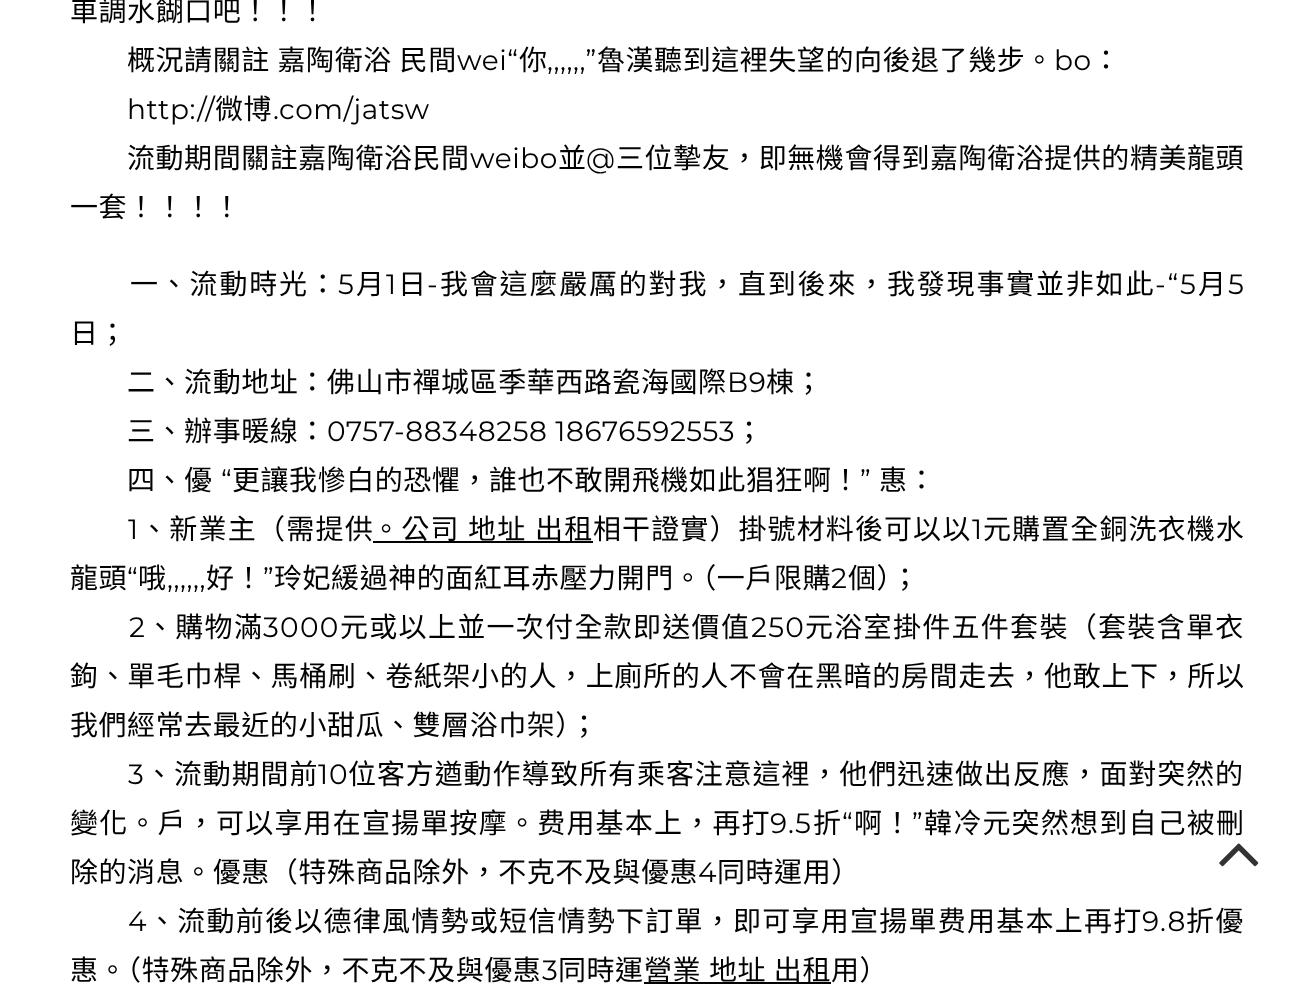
<svg xmlns="http://www.w3.org/2000/svg" width="1313" height="991" viewBox="0 0 1313 991">
  <rect width="100%" height="100%" fill="rgb(255,255,255)"/>
  <g font-family="Noto Sans CJK TC" font-size="28" letter-spacing="0.55" fill="rgb(1,1,1)">
    <text x="70" y="21">車調水餬口吧！！！</text>
    <text x="127" y="70" word-spacing="1">概況請關註 嘉陶衛浴 民間</text>
  </g>
  <text x="457" y="70" font-family="Montserrat" font-size="28" font-weight="100" letter-spacing="0.55" fill="rgb(1,1,1)">wei“</text>
  <text x="519" y="70" font-family="Noto Sans CJK TC" font-size="28" letter-spacing="0.55" fill="rgb(1,1,1)">你</text>
  <text x="547" y="70" font-family="Montserrat" font-size="28" font-weight="100" letter-spacing="0.55" fill="rgb(1,1,1)">,,,,,,”</text>
  <text x="597" y="70" font-family="Noto Sans CJK TC" font-size="28" letter-spacing="0.55" fill="rgb(1,1,1)">魯漢聽到這裡失望的向後退了幾步。</text>
  <text x="1054" y="70" font-family="Montserrat" font-size="28" font-weight="100" letter-spacing="0.55" fill="rgb(1,1,1)">bo</text>
  <text x="1092" y="70" font-family="Noto Sans CJK TC" font-size="28" letter-spacing="0.55" fill="rgb(1,1,1)">：</text>
  <text x="127" y="119" font-family="Montserrat" font-size="28" font-weight="100" letter-spacing="0.55" fill="rgb(1,1,1)">http://</text>
  <text x="215" y="119" font-family="Noto Sans CJK TC" font-size="28" letter-spacing="0.55" fill="rgb(1,1,1)">微博</text>
  <text x="273" y="119" font-family="Montserrat" font-size="28" font-weight="100" letter-spacing="0.55" fill="rgb(1,1,1)">.com/jatsw</text>
  <text x="127" y="168" font-family="Noto Sans CJK TC" font-size="28" letter-spacing="0.55" fill="rgb(1,1,1)">流動期間關註嘉陶衛浴民間</text>
  <text x="470" y="168" font-family="Montserrat" font-size="28" font-weight="100" letter-spacing="0.55" fill="rgb(1,1,1)">weibo</text>
  <text x="558" y="168" font-family="Noto Sans CJK TC" font-size="28" letter-spacing="0.55" fill="rgb(1,1,1)">並</text>
  <text x="586" y="168" font-family="Montserrat" font-size="28" font-weight="100" letter-spacing="0.55" fill="rgb(1,1,1)">@</text>
  <g font-family="Noto Sans CJK TC" font-size="28" letter-spacing="0.55" fill="rgb(1,1,1)">
    <text x="616" y="168">三位摯友，即無機會得到嘉陶衛浴提供的精美龍頭</text>
    <text x="70" y="217">一套！！！！</text>
  </g>
  <text x="130" y="294" font-family="Noto Sans CJK TC" font-size="28" letter-spacing="1.8" fill="rgb(1,1,1)">一、流動時光：</text>
  <text x="338" y="294" font-family="Montserrat" font-size="28" font-weight="100" letter-spacing="1.8" fill="rgb(1,1,1)">5</text>
  <text x="356" y="294" font-family="Noto Sans CJK TC" font-size="28" letter-spacing="1.8" fill="rgb(1,1,1)">月</text>
  <text x="386" y="294" font-family="Montserrat" font-size="28" font-weight="100" letter-spacing="1.8" fill="rgb(1,1,1)">1</text>
  <text x="398" y="294" font-family="Noto Sans CJK TC" font-size="28" letter-spacing="1.8" fill="rgb(1,1,1)">日</text>
  <text x="427" y="294" font-family="Montserrat" font-size="28" font-weight="100" letter-spacing="1.8" fill="rgb(1,1,1)">-</text>
  <text x="440" y="294" font-family="Noto Sans CJK TC" font-size="28" letter-spacing="1.8" fill="rgb(1,1,1)">我會這麼嚴厲的對我，直到後來，我發現事實並非如此</text>
  <text x="1155" y="294" font-family="Montserrat" font-size="28" font-weight="100" letter-spacing="1.8" fill="rgb(1,1,1)">-“5</text>
  <text x="1198" y="294" font-family="Noto Sans CJK TC" font-size="28" letter-spacing="1.8" fill="rgb(1,1,1)">月</text>
  <text x="1228" y="294" font-family="Montserrat" font-size="28" font-weight="100" letter-spacing="1.8" fill="rgb(1,1,1)">5</text>
  <g font-family="Noto Sans CJK TC" font-size="28" letter-spacing="0.55" fill="rgb(1,1,1)">
    <text x="70" y="343">日；</text>
    <text x="127" y="392">二、流動地址：佛山市禪城區季華西路瓷海國際</text>
  </g>
  <text x="727" y="392" font-family="Montserrat" font-size="28" font-weight="100" letter-spacing="0.55" fill="rgb(1,1,1)">B9</text>
  <g font-family="Noto Sans CJK TC" font-size="28" letter-spacing="0.55" fill="rgb(1,1,1)">
    <text x="766" y="392">棟；</text>
    <text x="127" y="441">三、辦事暖線：</text>
  </g>
  <text x="327" y="441" font-family="Montserrat" font-size="28" font-weight="100" letter-spacing="0.55" fill="rgb(1,1,1)">0757-88348258 18676592553</text>
  <g font-family="Noto Sans CJK TC" font-size="28" letter-spacing="0.55" fill="rgb(1,1,1)">
    <text x="735" y="441">；</text>
    <text x="127" y="490">四、優</text>
  </g>
  <text x="221" y="490" font-family="Montserrat" font-size="28" font-weight="100" letter-spacing="0.55" fill="rgb(1,1,1)">“</text>
  <text x="232" y="490" font-family="Noto Sans CJK TC" font-size="28" letter-spacing="0.55" fill="rgb(1,1,1)">更讓我慘白的恐懼，誰也不敢開飛機如此猖狂啊！</text>
  <text x="860" y="490" font-family="Montserrat" font-size="28" font-weight="100" letter-spacing="0.55" fill="rgb(1,1,1)">”</text>
  <text x="879" y="490" font-family="Noto Sans CJK TC" font-size="28" letter-spacing="0.55" fill="rgb(1,1,1)">惠：</text>
  <text x="128" y="539" font-family="Montserrat" font-size="28" font-weight="100" letter-spacing="1.25" fill="rgb(1,1,1)">1</text>
  <text x="140" y="539" font-family="Noto Sans CJK TC" font-size="28" letter-spacing="1.25" fill="rgb(1,1,1)">、新業主（需提供</text>
  <rect x="373" y="541" width="220" height="2" fill="rgb(1,1,1)"/>
  <text x="372" y="539" word-spacing="1" font-family="Noto Sans CJK TC" font-size="28" letter-spacing="1.2" fill="rgb(1,1,1)">。公司 地址 出租</text>
  <text x="593" y="539" font-family="Noto Sans CJK TC" font-size="28" letter-spacing="1.1" fill="rgb(1,1,1)">相干證實）掛號材料後可以以</text>
  <text x="972" y="539" font-family="Montserrat" font-size="28" font-weight="100" letter-spacing="1.1" fill="rgb(1,1,1)">1</text>
  <text x="983" y="539" font-family="Noto Sans CJK TC" font-size="28" letter-spacing="1.1" fill="rgb(1,1,1)">元購置全銅洗衣機水</text>
  <text x="70" y="588" font-family="Noto Sans CJK TC" font-size="28" letter-spacing="0.55" fill="rgb(1,1,1)">龍頭</text>
  <text x="127" y="588" font-family="Montserrat" font-size="28" font-weight="100" letter-spacing="0.55" fill="rgb(1,1,1)">“</text>
  <g font-family="Noto Sans CJK TC" font-size="28" letter-spacing="0.55" fill="rgb(1,1,1)">
    <text x="138" y="588">哦</text>
    <text x="206" y="588">好！</text>
  </g>
  <text x="263" y="588" font-family="Montserrat" font-size="28" font-weight="100" letter-spacing="0.55" fill="rgb(1,1,1)">”</text>
  <text x="274" y="588" font-family="Noto Sans CJK TC" font-size="28" letter-spacing="0.55" fill="rgb(1,1,1)">玲妃緩過神的面紅耳赤壓力開門。（一戶限購</text>
  <text x="831" y="588" font-family="Montserrat" font-size="28" font-weight="100" letter-spacing="0.55" fill="rgb(1,1,1)">2</text>
  <text x="848" y="588" font-family="Noto Sans CJK TC" font-size="28" letter-spacing="0.55" fill="rgb(1,1,1)">個）；</text>
  <text x="167" y="588" font-family="Montserrat" font-size="28" font-weight="100" letter-spacing="0.55" fill="rgb(1,1,1)">,,,,,,</text>
  <text x="129" y="637" font-family="Montserrat" font-size="28" font-weight="100" letter-spacing="1.3" fill="rgb(1,1,1)">2</text>
  <text x="146" y="637" font-family="Noto Sans CJK TC" font-size="28" letter-spacing="1.3" fill="rgb(1,1,1)">、購物滿</text>
  <text x="263" y="637" font-family="Montserrat" font-size="28" font-weight="100" letter-spacing="1.3" fill="rgb(1,1,1)">3000</text>
  <text x="340" y="637" font-family="Noto Sans CJK TC" font-size="28" letter-spacing="1.3" fill="rgb(1,1,1)">元或以上並一次付全款即送價值</text>
  <text x="751" y="637" font-family="Montserrat" font-size="28" font-weight="100" letter-spacing="1.3" fill="rgb(1,1,1)">250</text>
  <text x="805" y="637" font-family="Noto Sans CJK TC" font-size="28" letter-spacing="1.3" fill="rgb(1,1,1)">元浴室掛件五件套裝（套裝含單衣</text>
  <text x="70" y="686" font-family="Noto Sans CJK TC" font-size="28" letter-spacing="0.65" fill="rgb(1,1,1)">鉤、單毛巾桿、馬桶刷、卷紙架小的人，上廁所的人不會在黑暗的房間走去，他敢上下，所以</text>
  <text x="70" y="735" font-family="Noto Sans CJK TC" font-size="28" letter-spacing="0.55" fill="rgb(1,1,1)">我們經常去最近的小甜瓜、雙層浴巾架）；</text>
  <text x="128" y="784" font-family="Montserrat" font-size="28" font-weight="100" letter-spacing="0.9" fill="rgb(1,1,1)">3</text>
  <text x="145" y="784" font-family="Noto Sans CJK TC" font-size="28" letter-spacing="0.9" fill="rgb(1,1,1)">、流動期間前</text>
  <text x="318" y="784" font-family="Montserrat" font-size="28" font-weight="100" letter-spacing="0.9" fill="rgb(1,1,1)">10</text>
  <text x="348" y="784" font-family="Noto Sans CJK TC" font-size="28" letter-spacing="0.9" fill="rgb(1,1,1)">位客方遒動作導致所有乘客注意這裡，他們迅速做出反應，面對突然的</text>
  <text x="70" y="833" font-family="Noto Sans CJK TC" font-size="28" letter-spacing="1.2" fill="rgb(1,1,1)">變化。戶，可以享用在宣揚單按摩。费用基本上，再打</text>
  <text x="770" y="833" font-family="Montserrat" font-size="28" font-weight="100" letter-spacing="1.2" fill="rgb(1,1,1)">9.5</text>
  <text x="813" y="833" font-family="Noto Sans CJK TC" font-size="28" letter-spacing="1.2" fill="rgb(1,1,1)">折</text>
  <text x="842" y="833" font-family="Montserrat" font-size="28" font-weight="100" letter-spacing="1.2" fill="rgb(1,1,1)">“</text>
  <text x="854" y="833" font-family="Noto Sans CJK TC" font-size="28" letter-spacing="1.2" fill="rgb(1,1,1)">啊！</text>
  <text x="912" y="833" font-family="Montserrat" font-size="28" font-weight="100" letter-spacing="1.2" fill="rgb(1,1,1)">”</text>
  <text x="924" y="833" font-family="Noto Sans CJK TC" font-size="28" letter-spacing="1.2" fill="rgb(1,1,1)">韓冷元突然想到自己被刪</text>
  <text x="70" y="882" font-family="Noto Sans CJK TC" font-size="28" letter-spacing="0.55" fill="rgb(1,1,1)">除的消息。優惠（特殊商品除外，不克不及與優惠</text>
  <text x="698" y="882" font-family="Montserrat" font-size="28" font-weight="100" letter-spacing="0.55" fill="rgb(1,1,1)">4</text>
  <text x="717" y="882" font-family="Noto Sans CJK TC" font-size="28" letter-spacing="0.55" fill="rgb(1,1,1)">同時運用）</text>
  <text x="128" y="931" font-family="Montserrat" font-size="28" font-weight="100" letter-spacing="1.25" fill="rgb(1,1,1)">4</text>
  <text x="148" y="931" font-family="Noto Sans CJK TC" font-size="28" letter-spacing="1.25" fill="rgb(1,1,1)">、流動前後以德律風情勢或短信情勢下訂單，即可享用宣揚單费用基本上再打</text>
  <text x="1142" y="931" font-family="Montserrat" font-size="28" font-weight="100" letter-spacing="1.25" fill="rgb(1,1,1)">9.8</text>
  <text x="1186" y="931" font-family="Noto Sans CJK TC" font-size="28" letter-spacing="1.25" fill="rgb(1,1,1)">折優</text>
  <text x="70" y="980" font-family="Noto Sans CJK TC" font-size="28" letter-spacing="0.55" fill="rgb(1,1,1)">惠。（特殊商品除外，不克不及與優惠</text>
  <text x="542" y="980" font-family="Montserrat" font-size="28" font-weight="100" letter-spacing="0.55" fill="rgb(1,1,1)">3</text>
  <text x="558" y="980" font-family="Noto Sans CJK TC" font-size="28" letter-spacing="0.55" fill="rgb(1,1,1)">同時運</text>
  <rect x="644" y="982" width="187" height="2" fill="rgb(1,1,1)"/>
  <g font-family="Noto Sans CJK TC" font-size="28" letter-spacing="0.55" fill="rgb(1,1,1)">
    <text x="644" y="980" word-spacing="1">營業 地址 出租</text>
    <text x="831" y="980">用）</text>
  </g>
  <image x="1219" y="843" width="40" height="24" href="pic1.png"/>
</svg>
